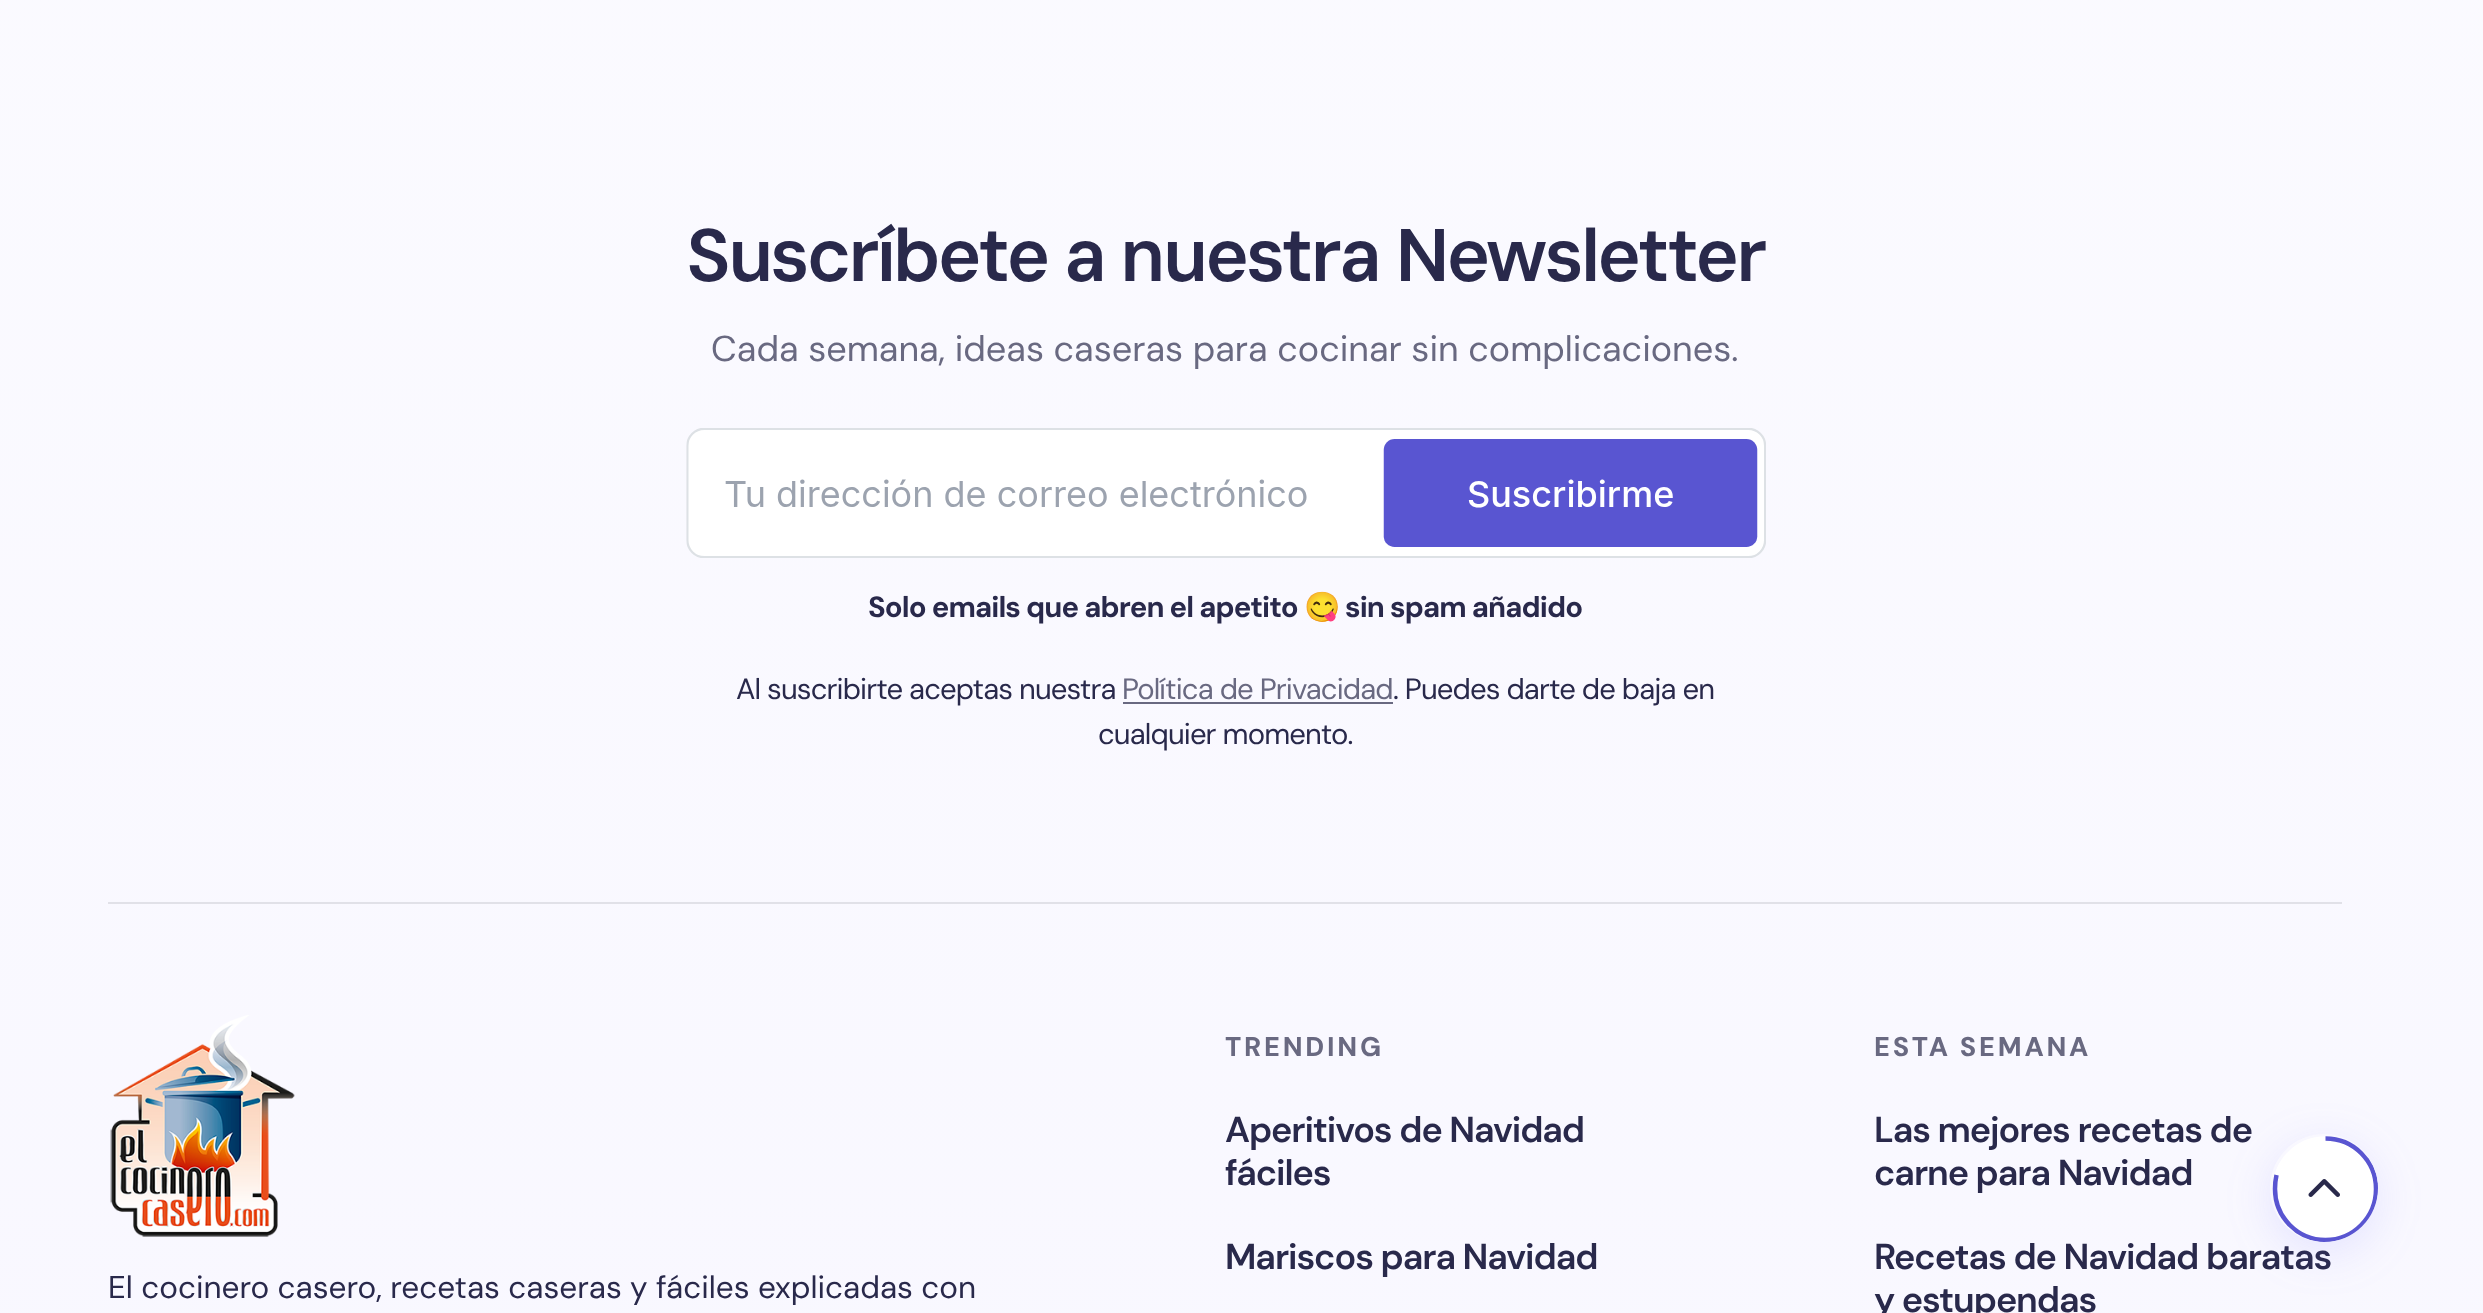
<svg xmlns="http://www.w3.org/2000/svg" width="2483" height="1313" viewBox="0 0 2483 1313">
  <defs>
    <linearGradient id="g1" gradientUnits="userSpaceOnUse" x1="1225" y1="-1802" x2="1225" y2="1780"><stop offset="0" stop-color="rgb(253,253,255)"/><stop offset="1" stop-color="rgb(248,247,255)"/></linearGradient>
    <clipPath id="clip1"><path d="M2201 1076H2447V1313H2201ZM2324 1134C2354 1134 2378 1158 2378 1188C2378 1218 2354 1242 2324 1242C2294 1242 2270 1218 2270 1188C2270 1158 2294 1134 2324 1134Z" clip-rule="evenodd"/></clipPath>
    <clipPath id="clip2"><rect x="2270" y="1134" width="108" height="108" rx="54"/></clipPath>
  </defs>
  <rect width="100%" height="100%" fill="rgb(255,255,255)"/>
  <rect x="0" y="0" width="2483" height="1313" fill="url(#g1)"/>
  <text x="686" y="281" word-spacing="1" font-family="DM Sans" font-size="74.25" font-weight="600" letter-spacing="-3" fill="rgb(41,41,75)">Suscríbete a nuestra Newsletter</text>
  <text x="711" y="361" font-family="DM Sans" font-size="36" fill="rgb(105,105,129)">Cada semana, ideas caseras para cocinar sin complicaciones.</text>
  <image x="686" y="428" width="1080" height="130" href="pic1.png"/>
  <text x="868" y="617" font-family="DM Sans" font-size="29.25" font-weight="bold" letter-spacing="-0.9" fill="rgb(41,41,75)">Solo emails que abren el apetito</text>
  <text x="1304" y="617" font-family="Noto Color Emoji" font-size="29.25" font-weight="bold" letter-spacing="-0.9" fill="rgb(41,41,75)">😋</text>
  <text x="1345" y="617" font-family="DM Sans" font-size="29.25" font-weight="bold" letter-spacing="-0.9" fill="rgb(41,41,75)">sin spam añadido</text>
  <text x="736" y="699" font-family="'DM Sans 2'" font-size="29.25" letter-spacing="-0.9" fill="rgb(41,41,75)">Al suscribirte aceptas nuestra</text>
  <text x="1122" y="699" font-family="'DM Sans 2'" font-size="29.25" letter-spacing="-0.9" fill="rgb(105,105,129)">Política de Privacidad</text>
  <rect x="1123" y="702" width="270" height="2" fill="rgb(105,105,129)"/>
  <g font-family="'DM Sans 2'" font-size="29.25" letter-spacing="-0.9" fill="rgb(41,41,75)">
    <text x="1393" y="699">. Puedes darte de baja en</text>
    <text x="1098" y="744">cualquier momento.</text>
  </g>
  <rect x="108" y="902" width="2234" height="2" fill="rgb(225,225,232)"/>
  <image x="110" y="1015" width="185" height="222" href="pic2.png"/>
  <text x="108" y="1298" font-family="'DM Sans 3'" font-size="31.5" fill="rgb(41,41,75)">El cocinero casero, recetas caseras y fáciles explicadas con</text>
  <text x="1225" y="1056" font-family="DM Sans" font-size="27" font-weight="800" letter-spacing="2.75" fill="rgb(105,105,129)">TRENDING</text>
  <g font-family="'DM Sans 2'" font-size="36" font-weight="600" letter-spacing="-1.1" fill="rgb(41,41,75)">
    <text>
      <tspan x="1225" y="1142">Aperitivos de Navidad</tspan>
      <tspan x="1225" y="1185">fáciles</tspan>
    </text>
    <text x="1225" y="1269">Mariscos para Navidad</text>
  </g>
  <text x="1874" y="1056" font-family="DM Sans" font-size="27" font-weight="800" letter-spacing="2.75" fill="rgb(105,105,129)">ESTA SEMANA</text>
  <g font-family="'DM Sans 2'" font-size="36" font-weight="600" letter-spacing="-1.1" fill="rgb(41,41,75)">
    <text>
      <tspan x="1874" y="1142">Las mejores recetas de</tspan>
      <tspan x="1874" y="1185">carne para Navidad</tspan>
    </text>
    <text>
      <tspan x="1874" y="1269">Recetas de Navidad baratas</tspan>
      <tspan x="1874" y="1312">y estupendas</tspan>
    </text>
  </g>
  <g clip-path="url(#clip1)">
    <rect x="2270" y="1145" width="108" height="108" rx="54" fill="rgba(114,114,255,0.15)" filter="blur(22.5px)"/>
  </g>
  <circle cx="2325.5" cy="1189.5" r="50.5" fill="rgb(255,255,255)"/>
  <image x="2308" y="1179" width="32" height="18" href="pic3.png"/>
  <g clip-path="url(#clip2)">
    <path d="M2325.5 1138.5C2353.5 1138.5 2376 1161 2376 1189C2376 1217 2353.5 1240 2325.5 1240C2297.5 1240 2275 1217 2275 1189C2275 1161 2297.5 1138.5 2325.5 1138.5" fill="none" stroke="rgb(255,255,255)" stroke-width="4.5"/>
    <path d="M2325.5 1138.5C2353.5 1138.5 2376 1161 2376 1189C2376 1217 2353.5 1240 2325.5 1240C2297.5 1240 2275 1217 2275 1189C2275 1184 2275.5 1179.5 2276.5 1175" fill="none" stroke="rgb(89,85,209)" stroke-width="4.5"/>
  </g>
</svg>
